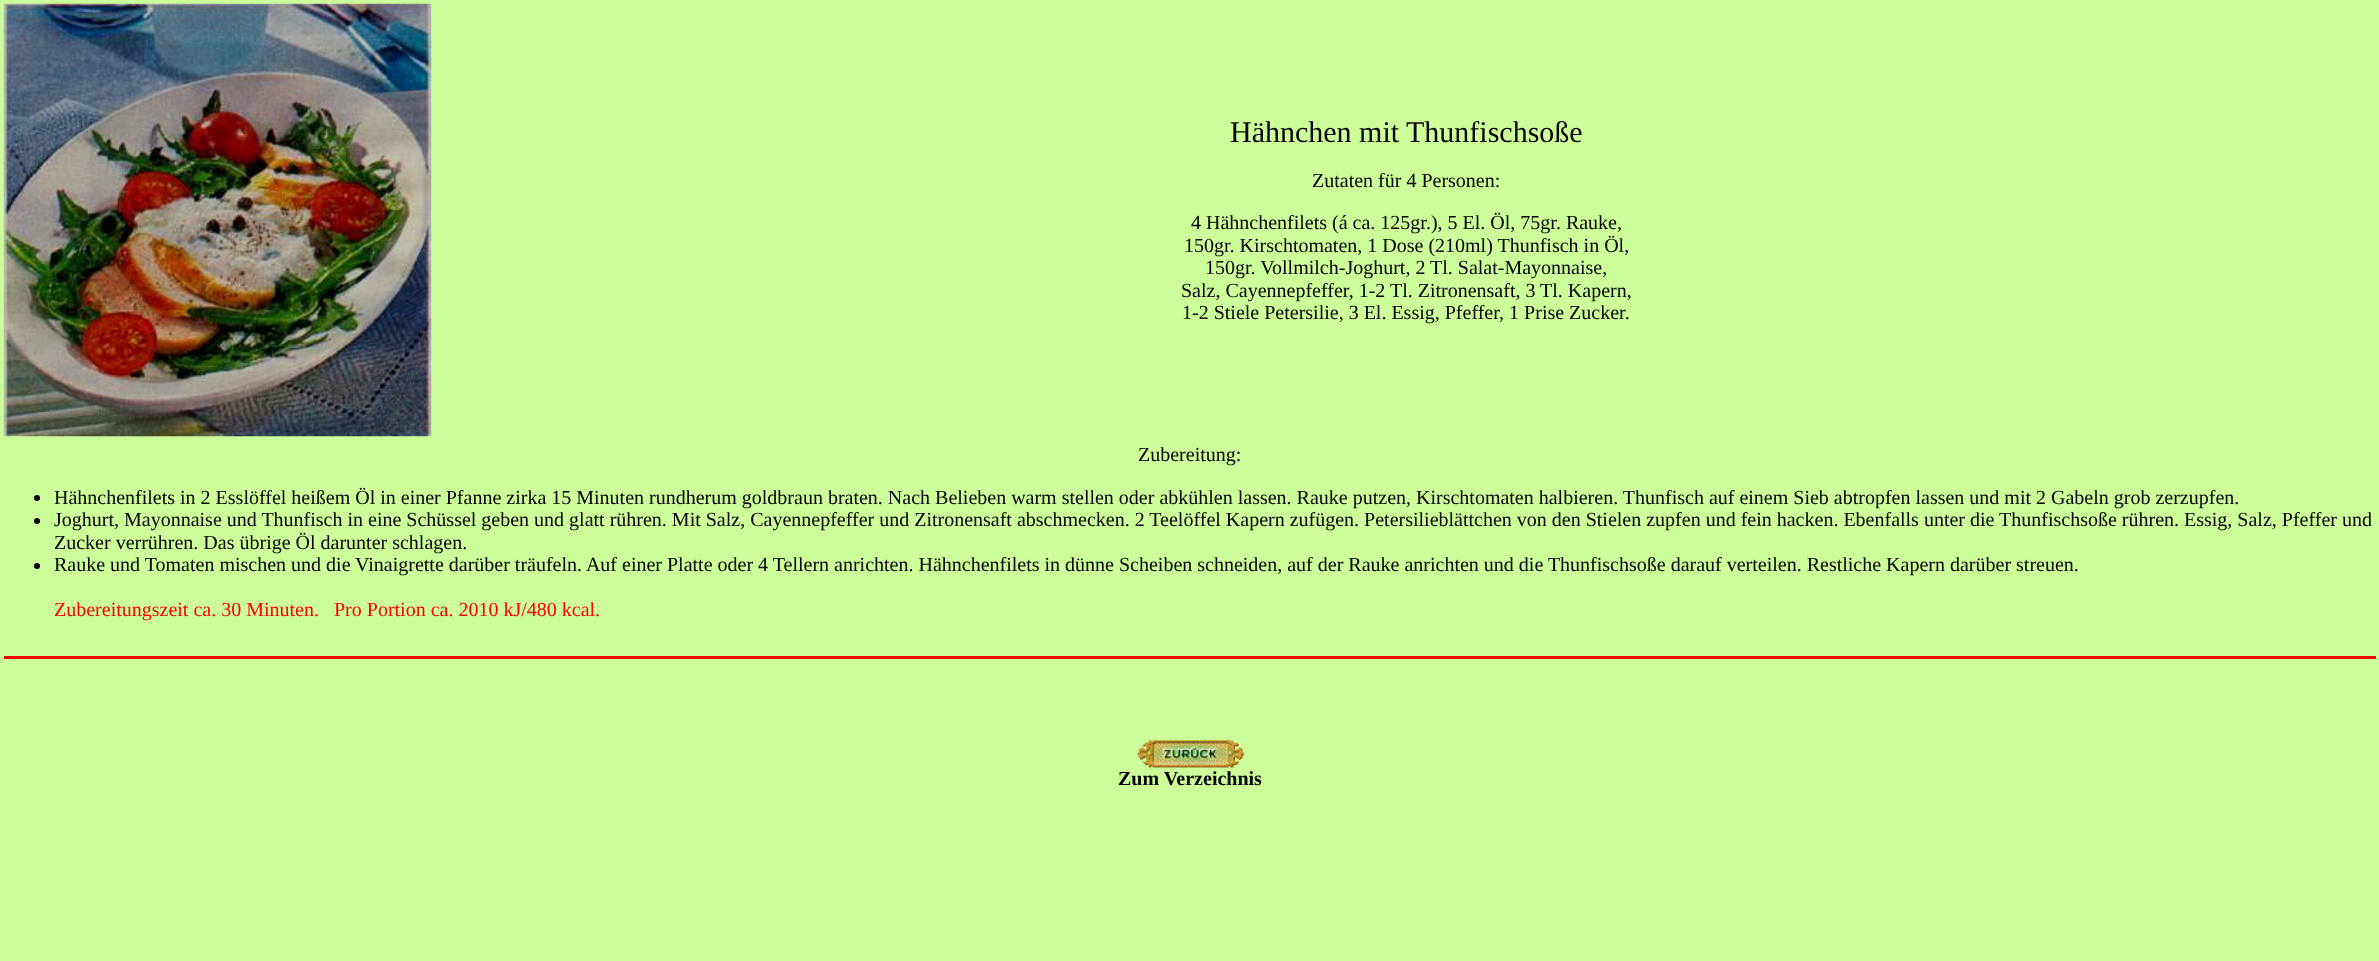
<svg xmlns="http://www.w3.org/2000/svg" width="2379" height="961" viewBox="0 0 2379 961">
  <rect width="100%" height="100%" fill="rgb(204,255,153)"/>
  <image x="3" y="3" width="429" height="434" href="pic1.png"/>
  <g font-family="Liberation Serif" font-size="30" fill="rgb(0,0,0)">
    <text x="1230" y="142">Hähnchen mit</text>
    <text x="1406" y="142">Thunfischsoße</text>
  </g>
  <g font-family="Liberation Serif" font-size="20" fill="rgb(0,0,0)">
    <text x="1312" y="187">Zutaten für 4 Personen:</text>
    <text x="1191" y="229">4 Hähnchenfilets (á ca. 125gr.), 5 El. Öl, 75gr. Rauke,</text>
    <text x="1184" y="252">150gr. Kirschtomaten, 1 Dose (210ml) Thunfisch in Öl,</text>
    <text x="1205" y="274">150gr. Vollmilch-Joghurt, 2 Tl. Salat-Mayonnaise,</text>
    <text x="1181" y="297">Salz, Cayennepfeffer, 1-2 Tl. Zitronensaft, 3 Tl. Kapern,</text>
    <text x="1182" y="319">1-2 Stiele Petersilie, 3 El. Essig, Pfeffer, 1 Prise Zucker.</text>
    <text x="1138" y="461">Zubereitung:</text>
  </g>
  <circle cx="37" cy="498" r="3" fill="rgb(0,0,0)"/>
  <text x="54" y="504" font-family="Liberation Serif" font-size="20" fill="rgb(0,0,0)">Hähnchenfilets in 2 Esslöffel heißem Öl in einer Pfanne zirka 15 Minuten rundherum goldbraun braten. Nach Belieben warm stellen oder abkühlen lassen. Rauke putzen, Kirschtomaten halbieren. Thunfisch auf einem Sieb abtropfen lassen und mit 2 Gabeln grob zerzupfen.</text>
  <circle cx="37" cy="521" r="3" fill="rgb(0,0,0)"/>
  <g font-family="Liberation Serif" font-size="20" fill="rgb(0,0,0)">
    <text>
      <tspan x="54" y="526">Joghurt, Mayonnaise und Thunfisch in eine Schüssel geben und glatt rühren. Mit Salz, Cayennepfeffer und Zitronensaft abschmecken. 2 Teelöffel Kapern zufügen. Petersilieblättchen von den Stielen zupfen und fein hacken. Ebenfalls unter die Thunfischsoße rühren. Essig, Salz, Pfeffer und</tspan>
      <tspan x="54" y="549">Zucker verrühren. Das übrige Öl darunter schlagen.</tspan>
    </text>
  </g>
  <circle cx="37" cy="566" r="3" fill="rgb(0,0,0)"/>
  <g font-family="Liberation Serif" font-size="20" fill="rgb(0,0,0)">
    <text x="54" y="571">Rauke und Tomaten mischen und die</text>
    <text x="355" y="571">Vinaigrette darüber träufeln. Auf einer Platte oder 4 Tellern anrichten. Hähnchenfilets in dünne Scheiben schneiden, auf der Rauke anrichten und die Thunfischsoße darauf verteilen. Restliche Kapern darüber streuen.</text>
  </g>
  <g font-family="Liberation Serif" font-size="20" fill="rgb(255,0,0)">
    <text x="54" y="616">Zubereitungszeit ca. 30 Minuten.</text>
    <text x="334" y="616">Pro Portion ca. 2010 kJ/480 kcal.</text>
  </g>
  <rect x="4" y="656" width="2372" height="3" fill="rgb(255,0,0)"/>
  <image x="1137" y="739" width="107" height="29" href="pic2.png"/>
  <text x="1118" y="785" font-family="Liberation Serif" font-size="20" font-weight="bold" fill="rgb(0,0,0)">Zum Verzeichnis</text>
</svg>
